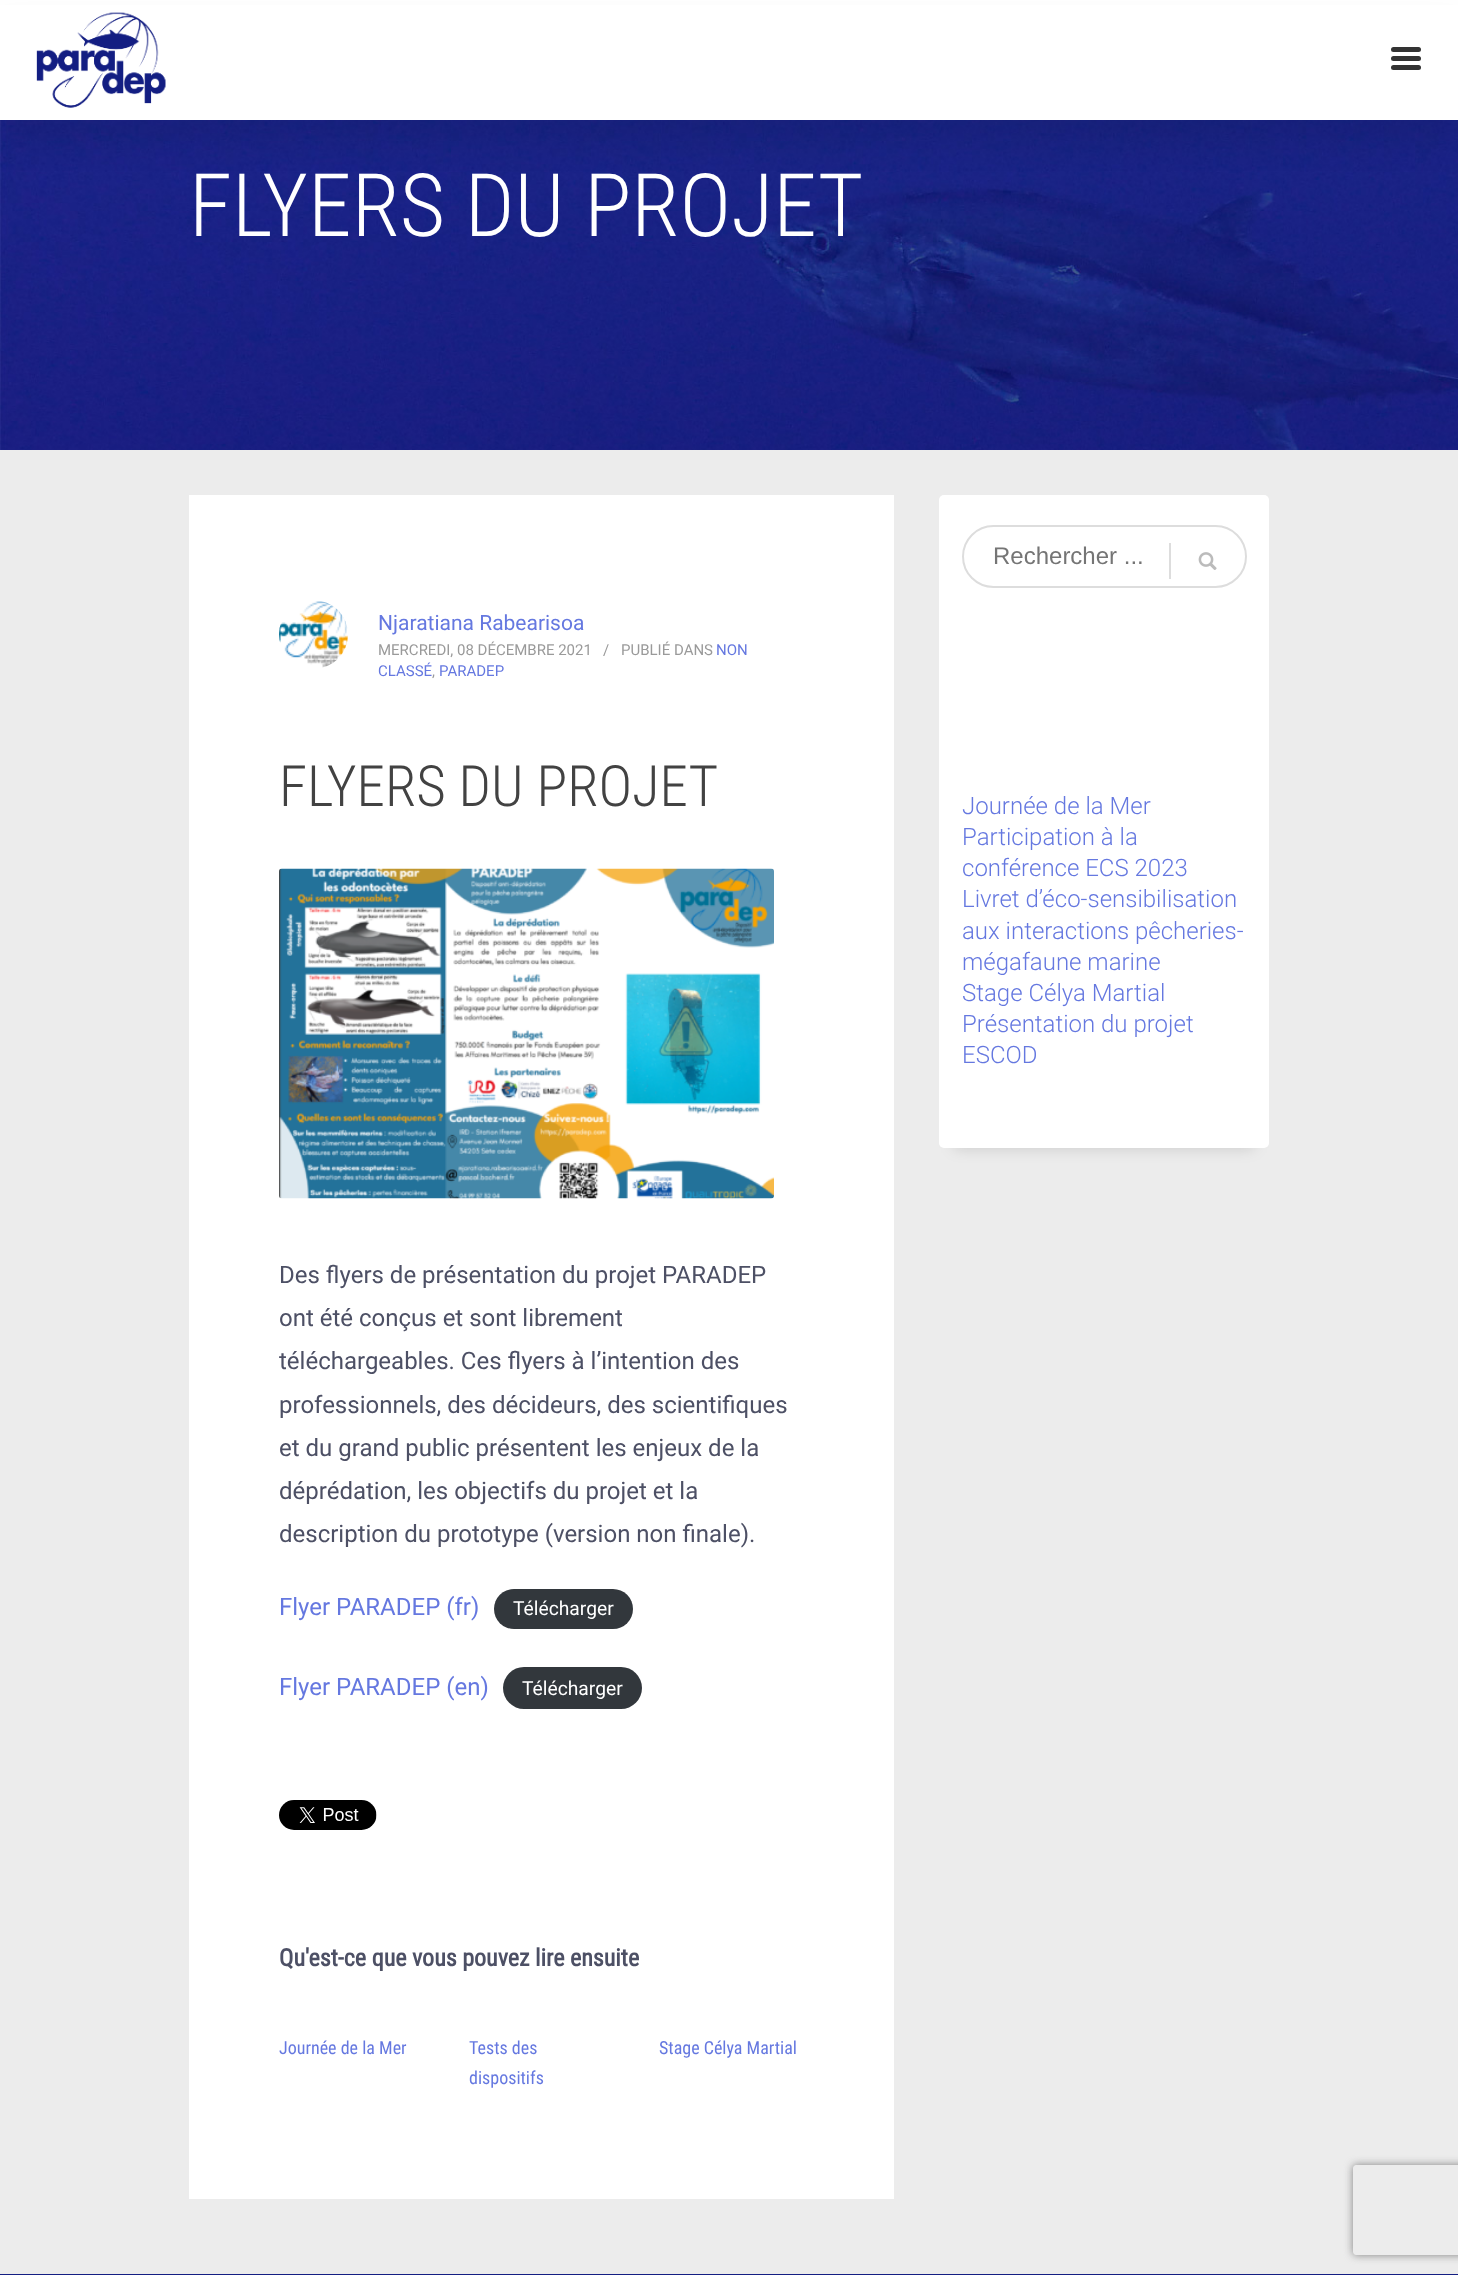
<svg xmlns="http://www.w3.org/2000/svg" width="1458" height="2275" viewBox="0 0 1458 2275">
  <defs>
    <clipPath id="clip1"><path d="M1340 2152H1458V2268H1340ZM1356 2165H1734C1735.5 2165 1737 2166.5 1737 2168V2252C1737 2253.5 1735.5 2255 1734 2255H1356C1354.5 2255 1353 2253.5 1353 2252V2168C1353 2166.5 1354.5 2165 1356 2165Z" clip-rule="evenodd"/></clipPath>
  </defs>
  <rect width="100%" height="100%" fill="rgb(255,255,255)"/>
  <image x="0" y="120" width="1458" height="330" href="pic2.png"/>
  <rect x="0" y="23" width="1458" height="120" fill="rgba(0,0,0,0.09)" filter="blur(15px)"/>
  <rect x="0" y="5" width="1458" height="115" fill="rgb(255,255,255)"/>
  <image x="36" y="12" width="130" height="96" href="pic1.png"/>
  <rect x="1391" y="47" width="30" height="5" rx="2.5" fill="rgb(51,51,51)"/>
  <rect x="1391" y="56" width="30" height="5" rx="2.5" fill="rgb(51,51,51)"/>
  <rect x="1391" y="65" width="30" height="5" rx="2.5" fill="rgb(51,51,51)"/>
  <text x="189" y="236" font-family="Roboto Condensed" font-size="87.5" font-weight="300" fill="rgb(255,255,255)">FLYERS DU PROJET</text>
  <rect x="0" y="450" width="1458" height="1824" fill="rgb(236,236,236)"/>
  <rect x="189" y="495" width="705" height="1704" fill="rgb(255,255,255)"/>
  <image x="279" y="601" width="69" height="67" href="pic3.png"/>
  <text x="378" y="630" font-family="Roboto" font-size="21" fill="rgb(101,120,224)">Njaratiana Rabearisoa</text>
  <g font-family="Roboto" font-size="15" fill="rgb(154,154,154)">
    <text x="378" y="655">MERCREDI, 08 DÉCEMBRE 2021</text>
    <text x="603" y="655">/</text>
    <text x="621" y="655">PUBLIÉ DANS</text>
  </g>
  <g font-family="Roboto" font-size="15" fill="rgb(101,120,224)">
    <text x="716" y="655">NON</text>
    <text x="378" y="676">CLASSÉ</text>
    <text x="439" y="676">PARADEP</text>
  </g>
  <text x="432" y="676" font-family="Roboto" font-size="15" fill="rgb(154,154,154)">,</text>
  <text x="279" y="806" font-family="Roboto Condensed" font-size="57" font-weight="300" fill="rgb(66,66,66)">FLYERS DU PROJET</text>
  <image x="279" y="868" width="495" height="331" href="pic4.png"/>
  <g font-family="Roboto" font-size="24" fill="rgb(77,80,101)">
    <text>
      <tspan x="279" y="1283">Des flyers de présentation du projet PARADEP</tspan>
      <tspan x="279" y="1326">ont été conçus et sont librement</tspan>
      <tspan x="279" y="1369">téléchargeables. Ces flyers à l’intention des</tspan>
      <tspan x="279" y="1413">professionnels, des décideurs, des scientifiques</tspan>
      <tspan x="279" y="1456">et du grand public présentent les enjeux de la</tspan>
      <tspan x="279" y="1499">déprédation, les objectifs du projet et la</tspan>
      <tspan x="279" y="1542">description du prototype (version non finale).</tspan>
    </text>
  </g>
  <text x="279" y="1615" font-family="Roboto" font-size="24" fill="rgb(101,120,224)">Flyer PARADEP (fr)</text>
  <rect x="494" y="1589" width="139" height="40" rx="20" fill="rgb(50,55,60)"/>
  <text x="513" y="1615" font-family="Roboto" font-size="19.25" fill="rgb(255,255,255)">Télécharger</text>
  <text x="279" y="1695" font-family="Roboto" font-size="24" fill="rgb(101,120,224)">Flyer PARADEP (en)</text>
  <rect x="503" y="1667" width="139" height="42" rx="21" fill="rgb(50,55,60)"/>
  <text x="522" y="1695" font-family="Roboto" font-size="19.25" fill="rgb(255,255,255)">Télécharger</text>
  <image x="279" y="1800" width="98" height="30" href="pic5.png"/>
  <text x="279" y="1966" font-family="Roboto Condensed" font-size="24" font-weight="bold" fill="rgb(77,80,101)">Qu'est-ce que vous pouvez lire ensuite</text>
  <g font-family="Roboto Condensed" font-size="18" fill="rgb(101,120,224)">
    <text x="279" y="2054">Journée de la Mer</text>
    <text>
      <tspan x="469" y="2054">Tests des</tspan>
      <tspan x="469" y="2084">dispositifs</tspan>
    </text>
    <text x="659" y="2054">Stage Célya Martial</text>
  </g>
  <rect x="954" y="525" width="300" height="623" fill="rgba(0,0,0,0.15)" filter="blur(7.5px)"/>
  <rect x="939" y="495" width="330" height="653" rx="5" fill="rgb(255,255,255)"/>
  <rect x="963" y="526" width="283" height="61" rx="30.5" fill="none" stroke="rgb(221,221,221)" stroke-width="2"/>
  <text x="993" y="564" font-family="Liberation Sans" font-size="24" fill="rgb(117,117,117)">Rechercher ...</text>
  <rect x="1169" y="543" width="2" height="36" fill="rgb(221,221,221)"/>
  <image x="1198" y="552" width="19" height="18" href="pic6.png"/>
  <g font-family="Roboto" font-size="24" font-weight="300" fill="rgb(101,120,224)">
    <text>
      <tspan x="962" y="814">Journée de la Mer</tspan>
      <tspan x="962" y="845">Participation à la</tspan>
      <tspan x="962" y="876">conférence ECS 2023</tspan>
      <tspan x="962" y="907">Livret d’éco-sensibilisation</tspan>
      <tspan x="962" y="939">aux interactions pêcheries-</tspan>
      <tspan x="962" y="970">mégafaune marine</tspan>
      <tspan x="962" y="1001">Stage Célya Martial</tspan>
      <tspan x="962" y="1032">Présentation du projet</tspan>
      <tspan x="962" y="1063">ESCOD</tspan>
    </text>
  </g>
  <rect x="0" y="2274" width="1458" height="1" fill="rgb(20,30,130)"/>
  <g clip-path="url(#clip1)">
    <rect x="1353" y="2165" width="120" height="90" rx="3" fill="rgb(128,128,128)" filter="blur(4px)"/>
  </g>
</svg>
